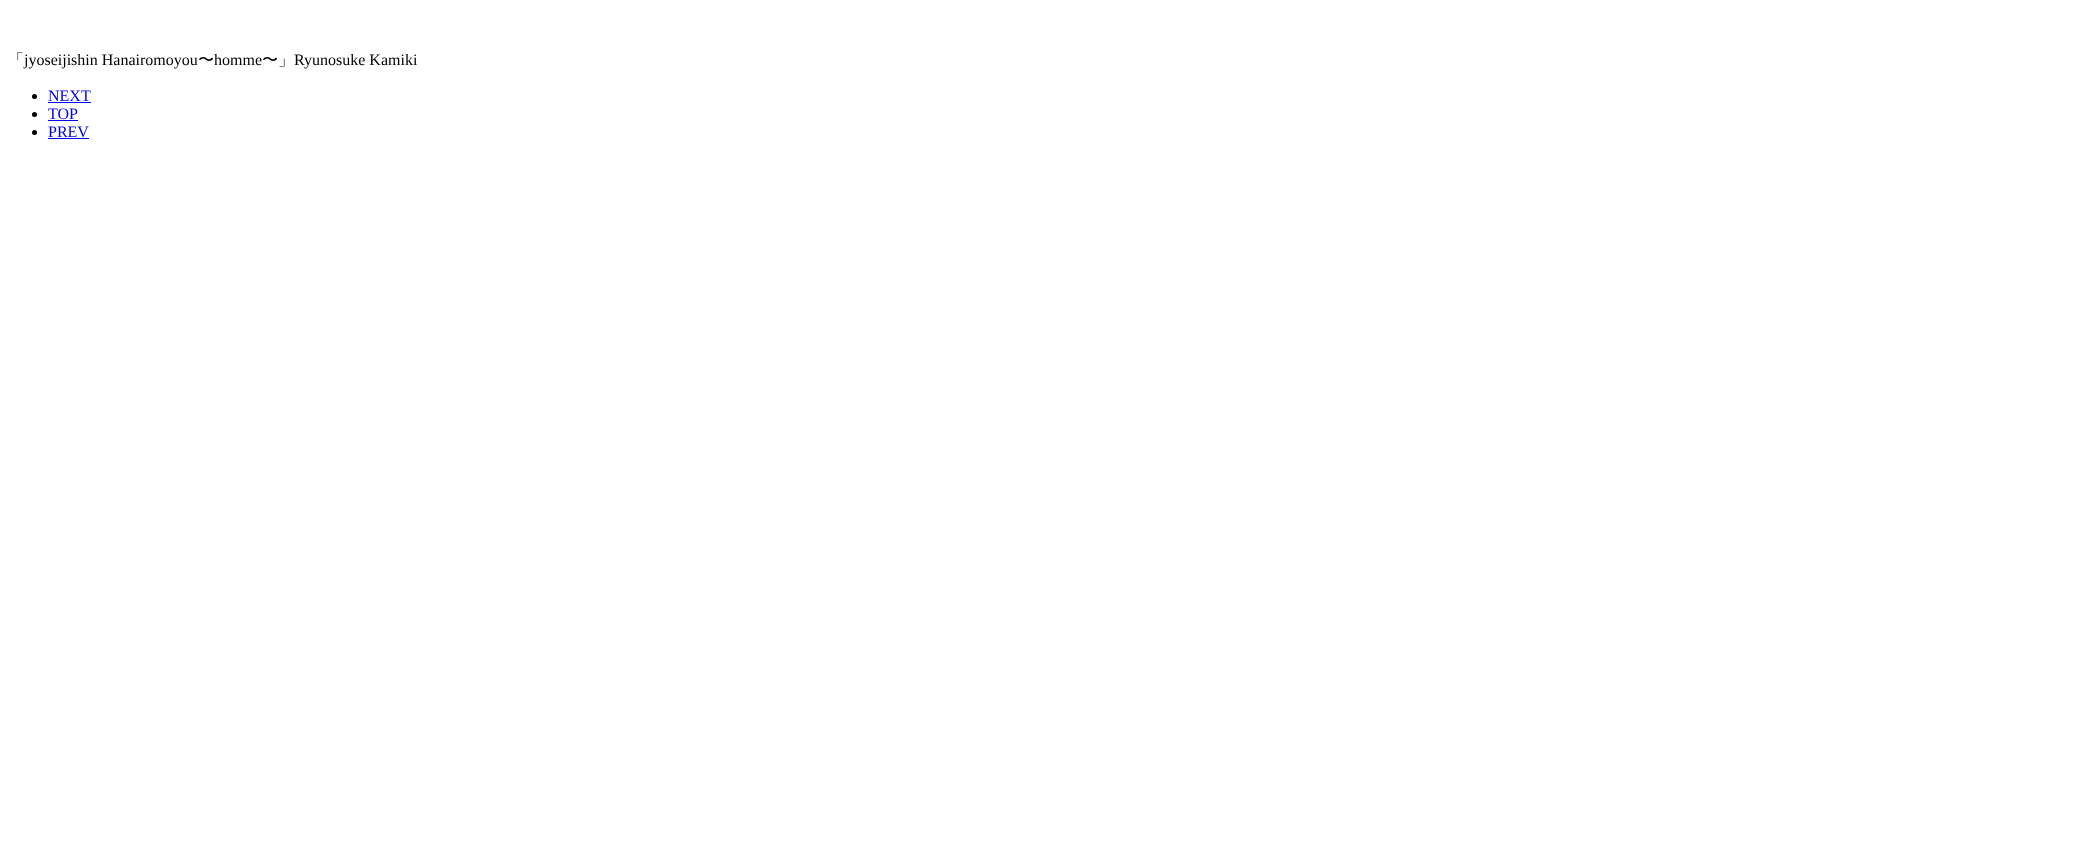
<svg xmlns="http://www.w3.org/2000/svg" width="2074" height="864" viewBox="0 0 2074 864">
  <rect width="100%" height="100%" fill="rgb(255,255,255)"/>
  <text x="8" y="65" font-family="WenQuanYi Zen Hei" font-size="16" font-weight="500" fill="rgb(0,0,0)">「</text>
  <text x="24" y="65" font-family="Liberation Serif" font-size="16" fill="rgb(0,0,0)">jyoseijishin Hanairomoyou</text>
  <text x="198" y="65" font-family="WenQuanYi Zen Hei" font-size="16" font-weight="500" fill="rgb(0,0,0)">〜</text>
  <text x="214" y="65" font-family="Liberation Serif" font-size="16" fill="rgb(0,0,0)">homme</text>
  <text x="262" y="65" font-family="WenQuanYi Zen Hei" font-size="16" font-weight="500" fill="rgb(0,0,0)">〜」</text>
  <text x="294" y="65" font-family="Liberation Serif" font-size="16" fill="rgb(0,0,0)">Ryunosuke Kamiki</text>
  <circle cx="34.5" cy="96.5" r="2.5" fill="rgb(0,0,0)"/>
  <text x="48" y="101" font-family="Liberation Serif" font-size="16" fill="rgb(0,0,238)">NEXT</text>
  <rect x="48" y="102" width="43" height="1" fill="rgb(0,0,238)"/>
  <circle cx="34.5" cy="114.5" r="2.5" fill="rgb(0,0,0)"/>
  <text x="48" y="119" font-family="Liberation Serif" font-size="16" fill="rgb(0,0,238)">TOP</text>
  <rect x="48" y="120" width="30" height="1" fill="rgb(0,0,238)"/>
  <circle cx="34.5" cy="132.5" r="2.5" fill="rgb(0,0,0)"/>
  <text x="48" y="137" font-family="Liberation Serif" font-size="16" fill="rgb(0,0,238)">PREV</text>
  <rect x="48" y="138" width="41" height="1" fill="rgb(0,0,238)"/>
</svg>
